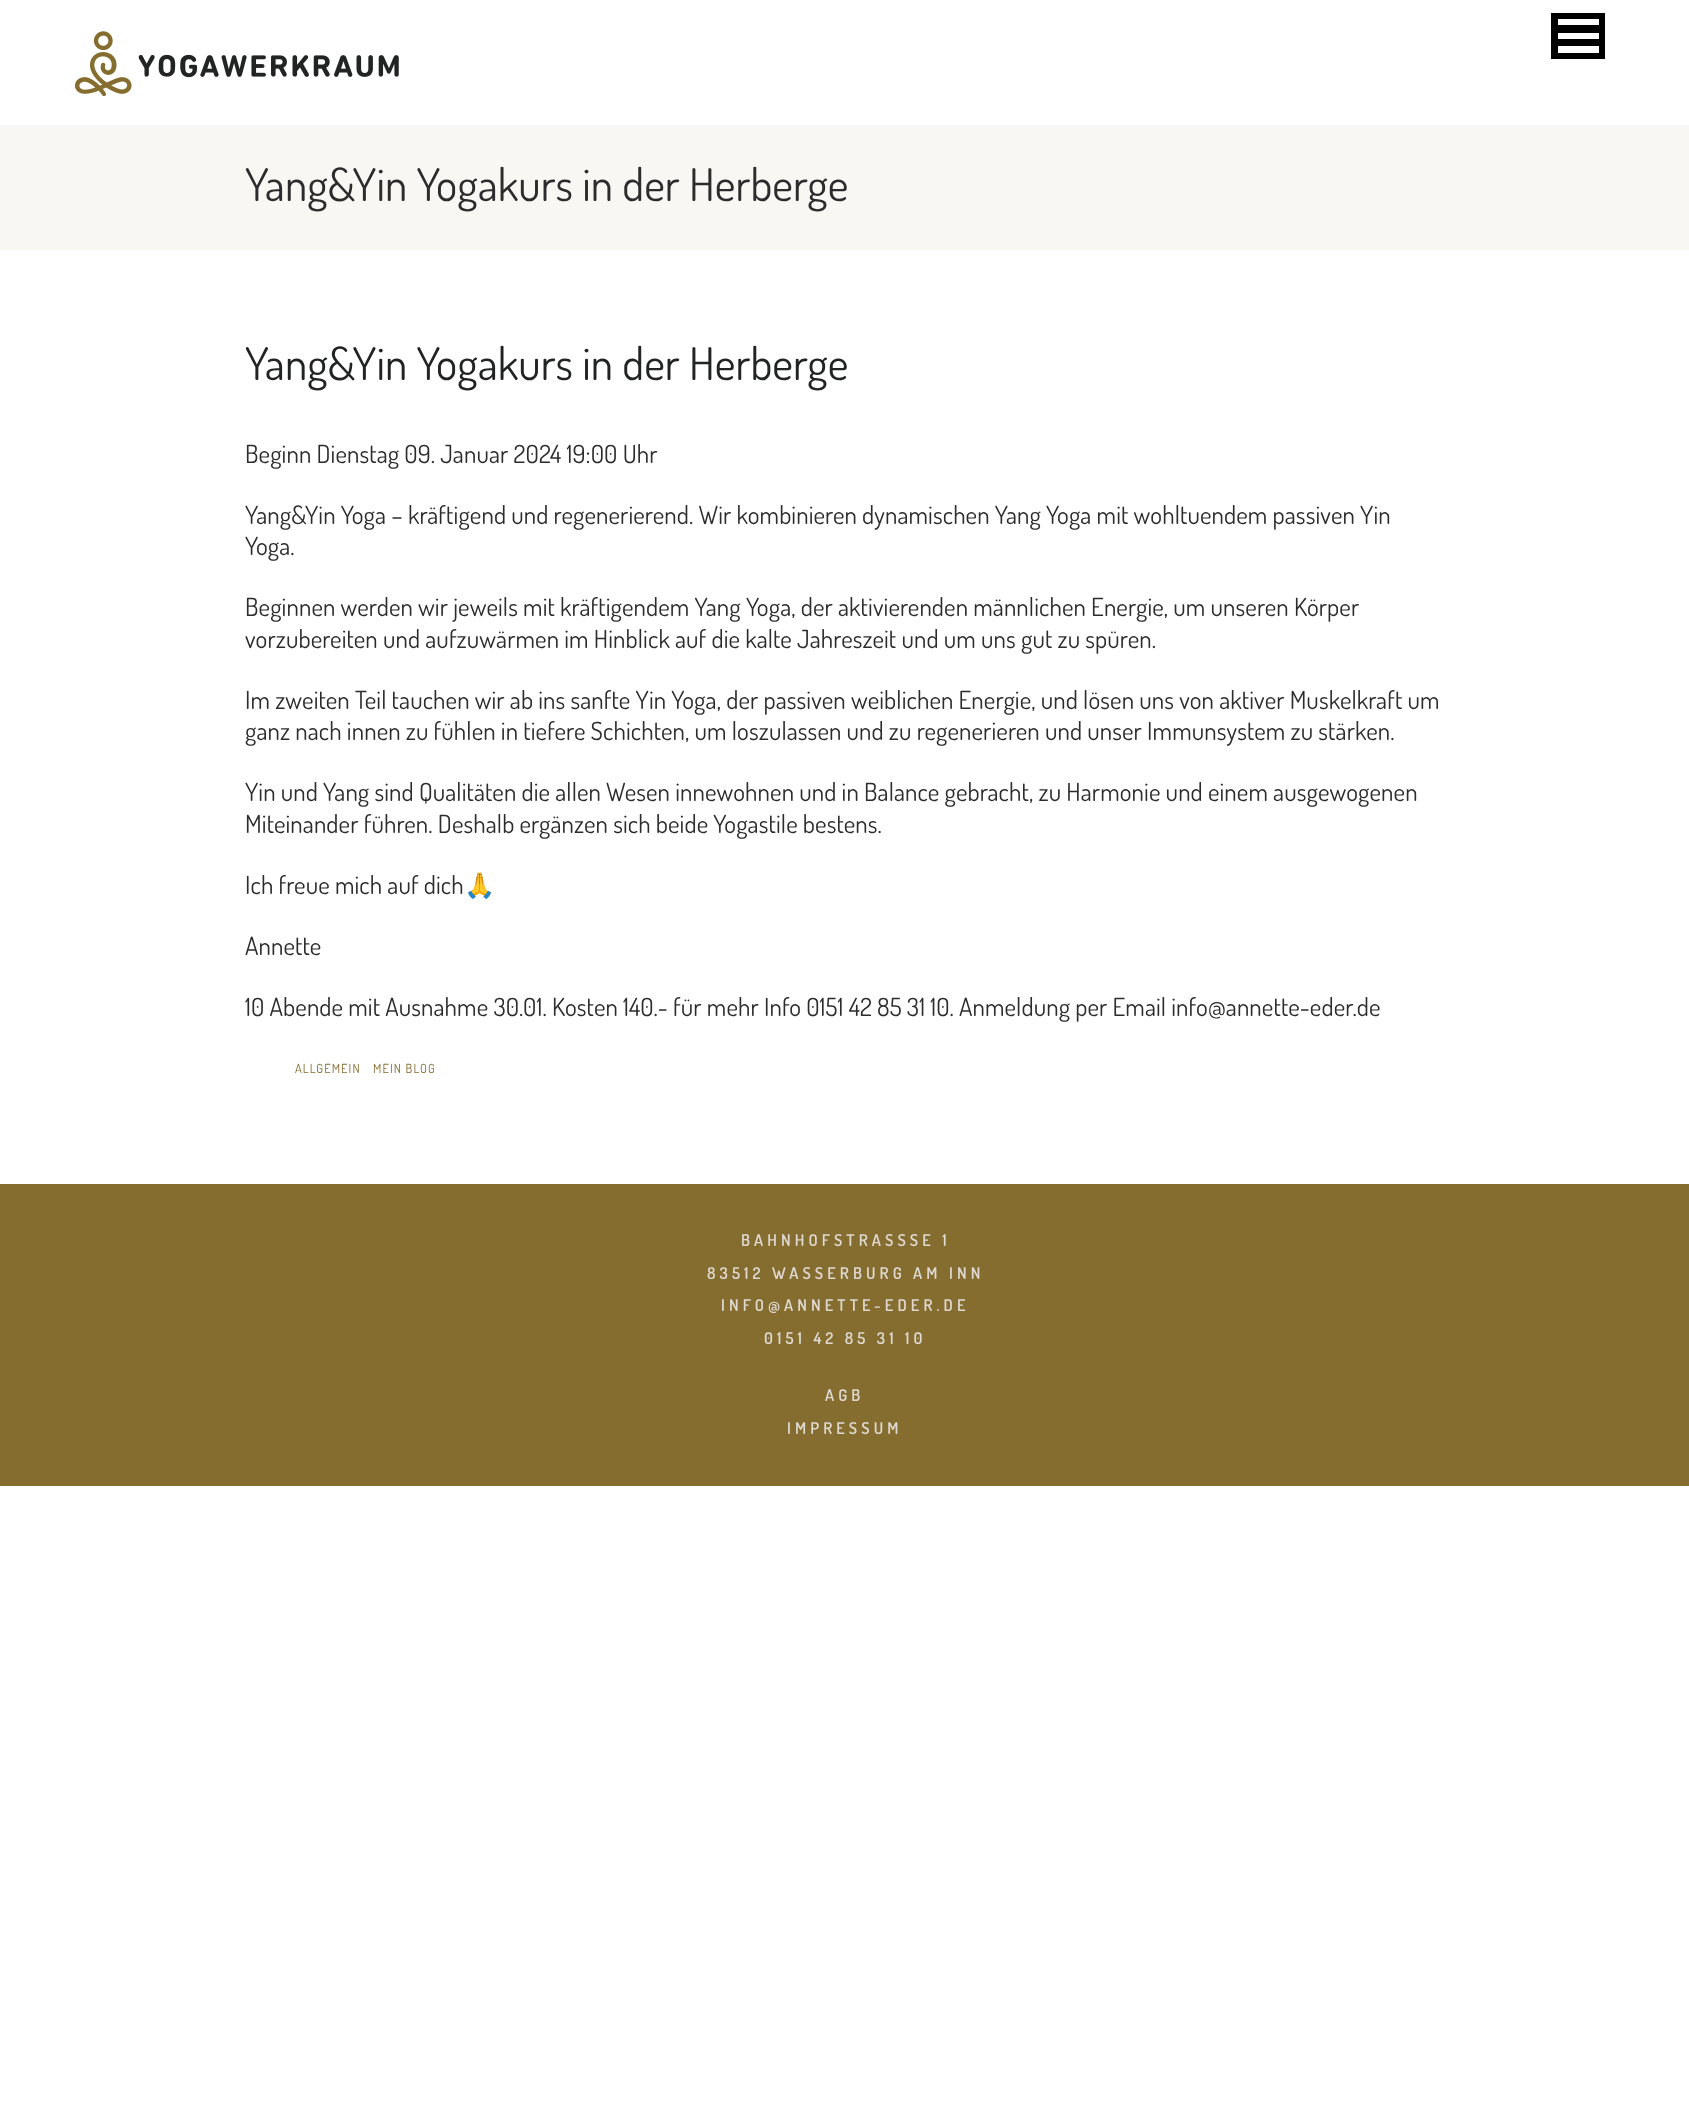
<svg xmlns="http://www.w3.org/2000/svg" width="1689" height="2112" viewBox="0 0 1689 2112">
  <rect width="100%" height="100%" fill="rgb(255,255,255)"/>
  <image x="75" y="31" width="324" height="65" href="pic1.png"/>
  <rect x="1551" y="13" width="54" height="46" fill="rgb(0,0,0)"/>
  <rect x="1558" y="19" width="41" height="6" fill="rgb(255,255,255)"/>
  <rect x="1558" y="33" width="41" height="6" fill="rgb(255,255,255)"/>
  <rect x="1558" y="46" width="41" height="7" fill="rgb(255,255,255)"/>
  <rect x="0" y="125" width="1689" height="125" fill="rgb(249,247,244)"/>
  <text x="245" y="201" font-family="Dosis" font-size="45" letter-spacing="0.12" fill="rgb(44,44,44)">Yang&amp;Yin Yogakurs in der Herberge</text>
  <text x="245" y="380" font-family="Dosis" font-size="45" letter-spacing="0.12" fill="rgb(34,35,35)">Yang&amp;Yin Yogakurs in der Herberge</text>
  <g font-family="Dosis" font-size="25" letter-spacing="0.12" fill="rgb(44,44,44)">
    <text x="245" y="463">Beginn Dienstag 09. Januar 2024 19:00 Uhr</text>
    <text>
      <tspan x="245" y="524">Yang&amp;Yin Yoga – kräftigend und regenerierend. Wir kombinieren dynamischen Yang Yoga mit wohltuendem passiven Yin</tspan>
      <tspan x="245" y="555">Yoga.</tspan>
    </text>
    <text>
      <tspan x="245" y="616">Beginnen werden wir jeweils mit kräftigendem Yang Yoga, der aktivierenden männlichen Energie, um unseren Körper</tspan>
      <tspan x="245" y="648">vorzubereiten und aufzuwärmen im Hinblick auf die kalte Jahreszeit und um uns gut zu spüren.</tspan>
    </text>
    <text>
      <tspan x="245" y="709">Im zweiten Teil tauchen wir ab ins sanfte Yin Yoga, der passiven weiblichen Energie, und lösen uns von aktiver Muskelkraft um</tspan>
      <tspan x="245" y="740">ganz nach innen zu fühlen in tiefere Schichten, um loszulassen und zu regenerieren und unser Immunsystem zu stärken.</tspan>
    </text>
    <text>
      <tspan x="245" y="801">Yin und Yang sind Qualitäten die allen Wesen innewohnen und in Balance gebracht, zu Harmonie und einem ausgewogenen</tspan>
      <tspan x="245" y="833">Miteinander führen. Deshalb ergänzen sich beide Yogastile bestens.</tspan>
    </text>
    <text x="245" y="894">Ich freue mich auf dich</text>
  </g>
  <text x="464" y="894" font-family="Noto Color Emoji" font-size="25" letter-spacing="0.12" fill="rgb(44,44,44)">🙏</text>
  <g font-family="Dosis" font-size="25" letter-spacing="0.12" fill="rgb(44,44,44)">
    <text x="245" y="955">Annette</text>
    <text x="245" y="1016">10 Abende mit Ausnahme 30.01. Kosten 140.- für mehr Info 0151 42 85 31 10. Anmeldung per Email info@annette-eder.de</text>
  </g>
  <g font-family="Dosis" font-size="12.5" letter-spacing="1.1" fill="rgb(133,109,48)">
    <text x="295" y="1073">ALLGEMEIN</text>
    <text x="373" y="1073">MEIN BLOG</text>
  </g>
  <rect x="0" y="1184" width="1689" height="302" fill="rgb(133,109,48)"/>
  <g font-family="Dosis" font-size="16.25" font-weight="600" letter-spacing="4.1" fill="rgb(222,216,208)">
    <text x="741" y="1246">BAHNHOFSTRASSSE 1</text>
    <text x="707" y="1279">83512 WASSERBURG AM INN</text>
    <text x="721" y="1311">INFO@ANNETTE-EDER.DE</text>
    <text x="764" y="1344">0151 42 85 31 10</text>
    <text x="825" y="1401">AGB</text>
    <text x="787" y="1434">IMPRESSUM</text>
  </g>
</svg>
